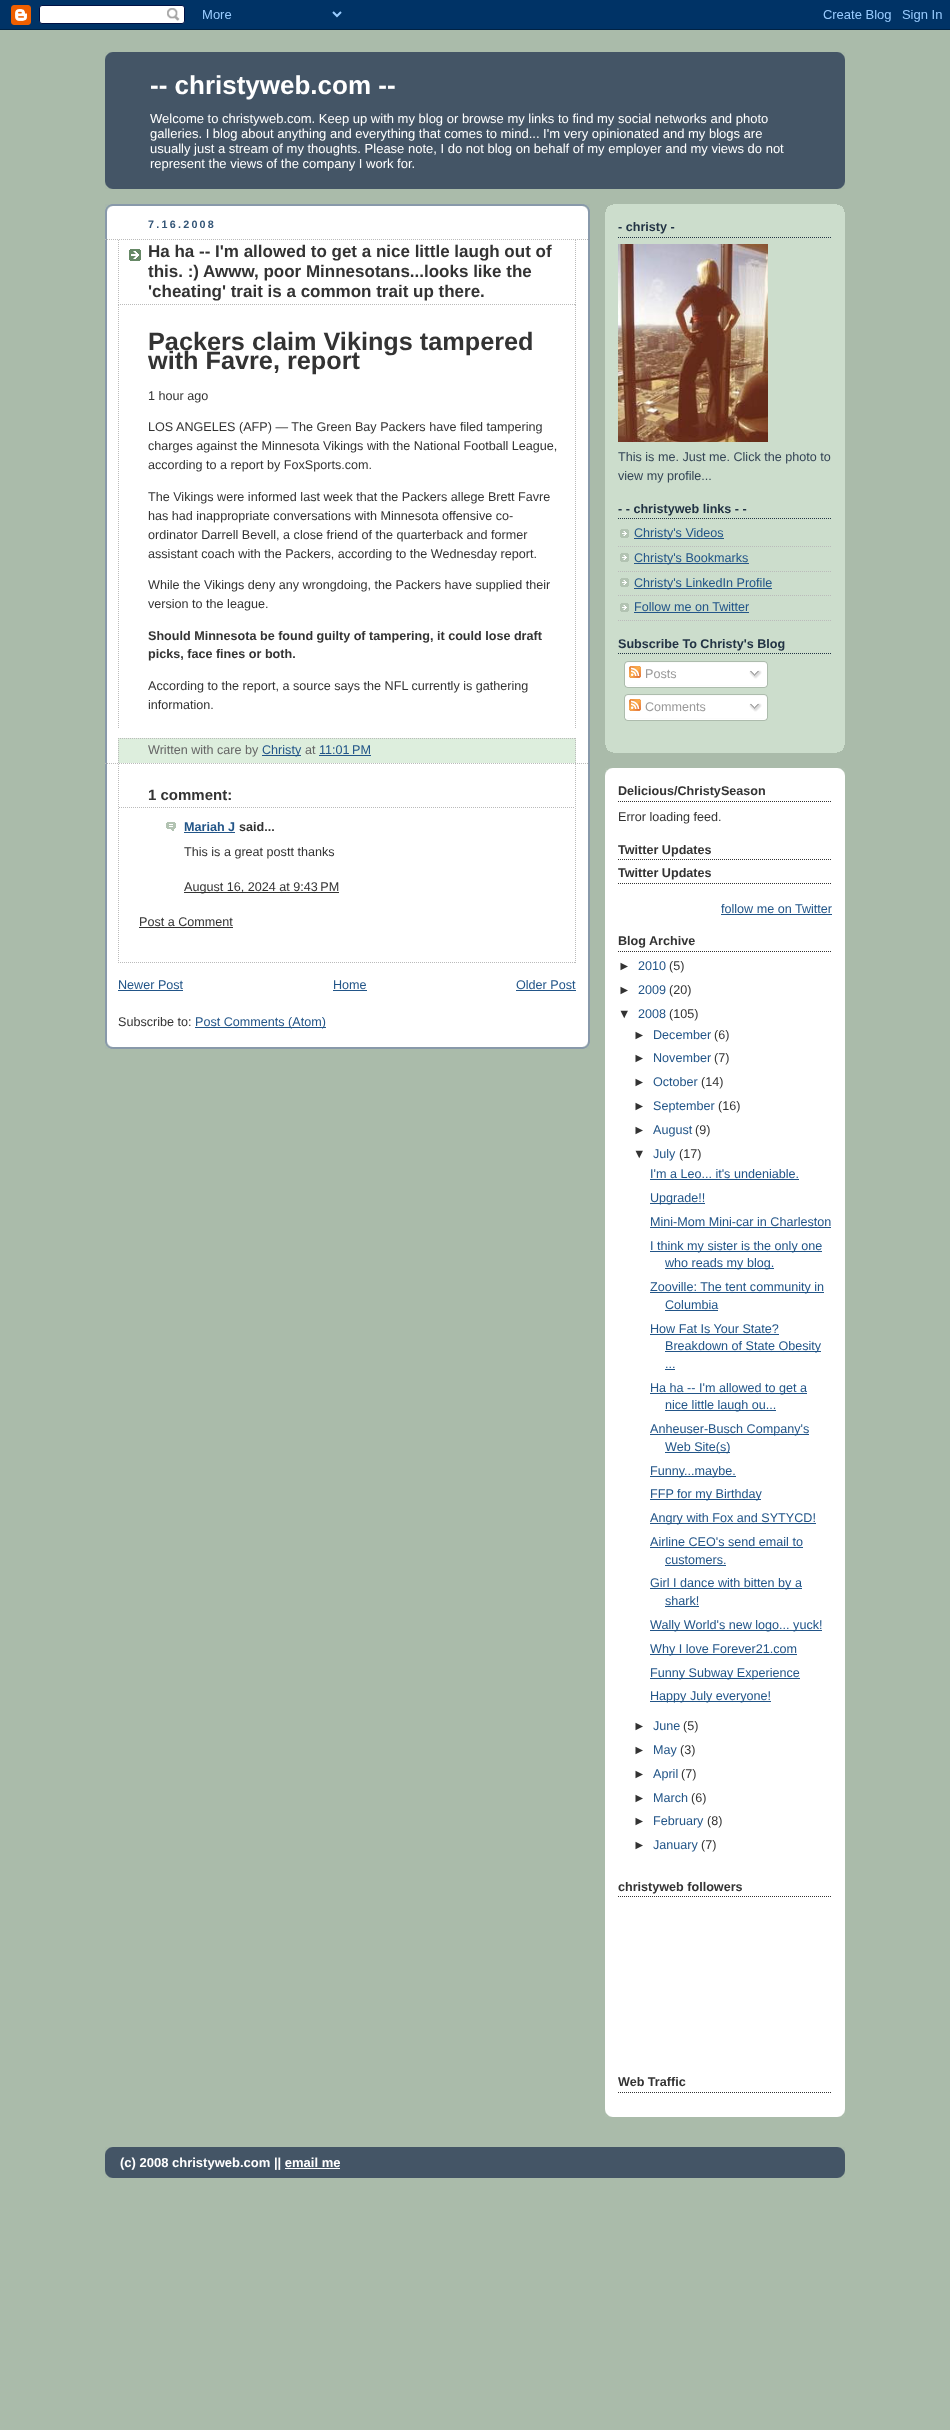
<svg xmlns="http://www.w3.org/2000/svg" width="950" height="2430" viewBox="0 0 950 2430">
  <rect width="100%" height="100%" fill="rgb(170,187,170)"/>
  <image x="0" y="0" width="950" height="30" href="pic1.png"/>
  <rect x="105" y="52" width="740" height="137" fill="rgb(68,85,102)"/>
  <image x="105" y="52" width="740" height="8" href="pic2.png"/>
  <image x="105" y="181" width="740" height="8" href="pic3.png"/>
  <text x="150" y="94" font-family="Liberation Sans" font-size="26" font-weight="bold" fill="rgb(255,255,255)">-- christyweb.com --</text>
  <g font-family="Liberation Sans" font-size="13" fill="rgb(255,255,255)">
    <text>
      <tspan x="150" y="123">Welcome to christyweb.com. Keep up with my blog or browse my links to find my social networks and photo</tspan>
      <tspan x="150" y="138">galleries. I blog about anything and everything that comes to mind... I'm very opinionated and my blogs are</tspan>
      <tspan x="150" y="153">usually just a stream of my thoughts. Please note, I do not blog on behalf of my employer and my views do not</tspan>
      <tspan x="150" y="168">represent the views of the company I work for.</tspan>
    </text>
  </g>
  <rect x="107" y="206" width="481" height="841" fill="rgb(255,255,255)"/>
  <image x="105" y="999" width="485" height="50" href="pic4.png"/>
  <image x="105" y="204" width="485" height="50" href="pic5.png"/>
  <image x="105" y="254" width="485" height="745" href="pic6.png"/>
  <text x="148" y="228" font-family="Liberation Sans" font-size="10.75" font-weight="bold" letter-spacing="2.25" fill="rgb(51,85,119)">7.16.2008</text>
  <path d="M105 239.5H589" fill="none" stroke="rgb(187,187,187)" stroke-dasharray="1 1"/>
  <path d="M105 763.5H589" fill="none" stroke="rgb(187,187,187)" stroke-dasharray="1 1"/>
  <image x="129" y="249" width="12" height="12" href="pic7.png"/>
  <path d="M575.5 240V305" fill="none" stroke="rgb(187,187,187)" stroke-dasharray="1 1"/>
  <path d="M118 304.5H576" fill="none" stroke="rgb(187,187,187)" stroke-dasharray="1 1"/>
  <path d="M118.5 240V305" fill="none" stroke="rgb(187,187,187)" stroke-dasharray="1 1"/>
  <g font-family="Liberation Sans" font-size="17" font-weight="bold" fill="rgb(51,51,51)">
    <text>
      <tspan x="148" y="257">Ha ha -- I'm allowed to get a nice little laugh out of</tspan>
      <tspan x="148" y="277">this. :)</tspan>
    </text>
    <text x="203" y="277">Awww, poor Minnesotans...looks like the</text>
    <text x="148" y="297">'cheating' trait is a common trait up there.</text>
  </g>
  <path d="M575.5 305V728" fill="none" stroke="rgb(187,187,187)" stroke-dasharray="1 1"/>
  <path d="M118.5 305V728" fill="none" stroke="rgb(187,187,187)" stroke-dasharray="1 1"/>
  <g font-family="Liberation Sans" font-size="25.25" font-weight="bold" fill="rgb(51,51,51)">
    <text>
      <tspan x="148" y="350">Packers claim Vikings tampered</tspan>
      <tspan x="148" y="369">with Favre, report</tspan>
    </text>
  </g>
  <g font-family="Liberation Sans" font-size="12.6" fill="rgb(51,51,51)">
    <text x="148" y="400">1 hour ago</text>
    <text>
      <tspan x="148" y="431">LOS ANGELES (AFP) — The Green Bay Packers have filed tampering</tspan>
      <tspan x="148" y="450">charges against the Minnesota Vikings with the National Football League,</tspan>
      <tspan x="148" y="469">according to a report by FoxSports.com.</tspan>
    </text>
    <text>
      <tspan x="148" y="501">The Vikings were informed last week that the Packers allege Brett Favre</tspan>
      <tspan x="148" y="520">has had inappropriate conversations with Minnesota offensive co-</tspan>
      <tspan x="148" y="539">ordinator Darrell Bevell, a close friend of the quarterback and former</tspan>
      <tspan x="148" y="558">assistant coach with the Packers, according to the Wednesday report.</tspan>
    </text>
    <text>
      <tspan x="148" y="589">While the Vikings deny any wrongdoing, the Packers have supplied their</tspan>
      <tspan x="148" y="608">version to the league.</tspan>
    </text>
  </g>
  <g font-family="Liberation Sans" font-size="12.6" font-weight="bold" fill="rgb(51,51,51)">
    <text>
      <tspan x="148" y="640">Should Minnesota be found guilty of tampering, it could lose draft</tspan>
      <tspan x="148" y="658">picks, face fines or both.</tspan>
    </text>
  </g>
  <g font-family="Liberation Sans" font-size="12.6" fill="rgb(51,51,51)">
    <text>
      <tspan x="148" y="690">According to the report, a source says the NFL currently is gathering</tspan>
      <tspan x="148" y="709">information.</tspan>
    </text>
  </g>
  <rect x="118" y="738" width="458" height="25" fill="rgb(221,238,221)"/>
  <path d="M118 738.5H576" fill="none" stroke="rgb(187,187,187)" stroke-dasharray="1 1"/>
  <path d="M575.5 738V763" fill="none" stroke="rgb(187,187,187)" stroke-dasharray="1 1"/>
  <path d="M118.5 738V763" fill="none" stroke="rgb(187,187,187)" stroke-dasharray="1 1"/>
  <text x="148" y="754" font-family="Liberation Sans" font-size="12.6" fill="rgb(102,102,102)">Written with care by</text>
  <rect x="262" y="755" width="39" height="1" fill="rgb(34,85,136)"/>
  <text x="262" y="754" font-family="Liberation Sans" font-size="12.6" fill="rgb(34,85,136)">Christy</text>
  <text x="305" y="754" font-family="Liberation Sans" font-size="12.6" fill="rgb(102,102,102)">at</text>
  <text x="319" y="754" font-family="Liberation Sans" font-size="12.6" fill="rgb(34,85,136)">11:01 PM</text>
  <rect x="319" y="755" width="52" height="1" fill="rgb(34,85,136)"/>
  <path d="M575.5 764V963" fill="none" stroke="rgb(187,187,187)" stroke-dasharray="1 1"/>
  <path d="M118 962.5H576" fill="none" stroke="rgb(187,187,187)" stroke-dasharray="1 1"/>
  <path d="M118.5 764V963" fill="none" stroke="rgb(187,187,187)" stroke-dasharray="1 1"/>
  <path d="M119 807.5H575" fill="none" stroke="rgb(187,187,187)" stroke-dasharray="1 1"/>
  <text x="148" y="800" font-family="Liberation Sans" font-size="15" font-weight="bold" fill="rgb(51,51,51)">1 comment:</text>
  <image x="166" y="822" width="10" height="9" href="pic8.png"/>
  <text x="184" y="831" font-family="Liberation Sans" font-size="12.6" font-weight="bold" fill="rgb(34,85,136)">Mariah J</text>
  <rect x="184" y="832" width="51" height="1" fill="rgb(34,85,136)"/>
  <text x="239" y="831" font-family="Liberation Sans" font-size="12.6" font-weight="bold" fill="rgb(51,51,51)">said...</text>
  <text x="184" y="856" font-family="Liberation Sans" font-size="12.6" fill="rgb(51,51,51)">This is a great postt thanks</text>
  <rect x="184" y="892" width="155" height="1" fill="rgb(51,51,51)"/>
  <g font-family="Liberation Sans" font-size="12.6" fill="rgb(51,51,51)">
    <text x="184" y="891">August 16, 2024 at 9:43 PM</text>
    <text x="139" y="926">Post a Comment</text>
  </g>
  <rect x="139" y="927" width="94" height="1" fill="rgb(51,51,51)"/>
  <text x="118" y="989" font-family="Liberation Sans" font-size="12.6" fill="rgb(34,85,136)">Newer Post</text>
  <rect x="118" y="990" width="65" height="1" fill="rgb(34,85,136)"/>
  <text x="333" y="989" font-family="Liberation Sans" font-size="12.6" fill="rgb(34,85,136)">Home</text>
  <rect x="333" y="990" width="34" height="1" fill="rgb(34,85,136)"/>
  <text x="516" y="989" font-family="Liberation Sans" font-size="12.6" fill="rgb(34,85,136)">Older Post</text>
  <rect x="516" y="990" width="60" height="1" fill="rgb(34,85,136)"/>
  <text x="118" y="1026" font-family="Liberation Sans" font-size="12.6" fill="rgb(51,51,51)">Subscribe to:</text>
  <rect x="195" y="1027" width="131" height="1" fill="rgb(34,85,136)"/>
  <text x="195" y="1026" font-family="Liberation Sans" font-size="12.6" fill="rgb(34,85,136)">Post Comments (Atom)</text>
  <rect x="605" y="204" width="240" height="549" fill="rgb(204,221,204)"/>
  <image x="605" y="745" width="240" height="8" href="pic9.png"/>
  <image x="605" y="204" width="240" height="8" href="pic10.png"/>
  <path d="M618 237.5H832" fill="none" stroke="rgb(34,51,68)" stroke-dasharray="1 1"/>
  <text x="618" y="231" font-family="Liberation Sans" font-size="12.6" font-weight="bold" fill="rgb(34,51,68)">- christy -</text>
  <image x="618" y="244" width="150" height="198" href="pic11.png"/>
  <g font-family="Liberation Sans" font-size="12.6" fill="rgb(51,68,85)">
    <text>
      <tspan x="618" y="461">This is me. Just me. Click the photo to</tspan>
      <tspan x="618" y="480">view my profile...</tspan>
    </text>
  </g>
  <path d="M618 518.5H832" fill="none" stroke="rgb(34,51,68)" stroke-dasharray="1 1"/>
  <text x="618" y="513" font-family="Liberation Sans" font-size="12.6" font-weight="bold" fill="rgb(34,51,68)">- - christyweb links - -</text>
  <image x="620" y="529" width="9" height="9" href="pic12.png"/>
  <path d="M618 546.5H832" fill="none" stroke="rgb(187,187,187)" stroke-dasharray="1 1"/>
  <rect x="634" y="538" width="90" height="1" fill="rgb(34,85,136)"/>
  <text x="634" y="537" font-family="Liberation Sans" font-size="12.6" fill="rgb(34,85,136)">Christy's Videos</text>
  <image x="620" y="553" width="9" height="9" href="pic12.png"/>
  <path d="M618 571.5H832" fill="none" stroke="rgb(187,187,187)" stroke-dasharray="1 1"/>
  <rect x="634" y="563" width="115" height="1" fill="rgb(34,85,136)"/>
  <text x="634" y="562" font-family="Liberation Sans" font-size="12.6" fill="rgb(34,85,136)">Christy's Bookmarks</text>
  <image x="620" y="578" width="9" height="9" href="pic12.png"/>
  <path d="M618 595.5H832" fill="none" stroke="rgb(187,187,187)" stroke-dasharray="1 1"/>
  <rect x="634" y="588" width="138" height="1" fill="rgb(34,85,136)"/>
  <text x="634" y="587" font-family="Liberation Sans" font-size="12.6" fill="rgb(34,85,136)">Christy's LinkedIn Profile</text>
  <image x="620" y="603" width="9" height="9" href="pic12.png"/>
  <path d="M618 620.5H832" fill="none" stroke="rgb(187,187,187)" stroke-dasharray="1 1"/>
  <text x="634" y="611" font-family="Liberation Sans" font-size="12.6" fill="rgb(34,85,136)">Follow me on Twitter</text>
  <rect x="634" y="612" width="115" height="1" fill="rgb(34,85,136)"/>
  <path d="M618 653.5H832" fill="none" stroke="rgb(34,51,68)" stroke-dasharray="1 1"/>
  <text x="618" y="648" font-family="Liberation Sans" font-size="12.6" font-weight="bold" fill="rgb(34,51,68)">Subscribe To Christy's Blog</text>
  <image x="624" y="661" width="144" height="24" href="pic13.png"/>
  <image x="629" y="666" width="12" height="12" href="pic14.png"/>
  <text x="645" y="678" font-family="Liberation Sans" font-size="12.6" fill="rgb(153,153,153)">Posts</text>
  <image x="749" y="670" width="13" height="9" href="pic15.png"/>
  <image x="624" y="685" width="144" height="3" href="pic16.png"/>
  <image x="624" y="694" width="144" height="24" href="pic13.png"/>
  <image x="629" y="699" width="12" height="12" href="pic14.png"/>
  <text x="645" y="711" font-family="Liberation Sans" font-size="12.6" fill="rgb(153,153,153)">Comments</text>
  <image x="749" y="703" width="13" height="9" href="pic15.png"/>
  <image x="624" y="718" width="144" height="3" href="pic16.png"/>
  <rect x="605" y="768" width="240" height="1349" fill="rgb(255,255,255)"/>
  <image x="605" y="768" width="240" height="8" href="pic17.png"/>
  <image x="605" y="2109" width="240" height="8" href="pic18.png"/>
  <path d="M618 801.5H832" fill="none" stroke="rgb(51,51,51)" stroke-dasharray="1 1"/>
  <text x="618" y="795" font-family="Liberation Sans" font-size="12.6" font-weight="bold" fill="rgb(51,51,51)">Delicious/ChristySeason</text>
  <text x="618" y="821" font-family="Liberation Sans" font-size="12.6" fill="rgb(51,51,51)">Error loading feed.</text>
  <path d="M618 859.5H832" fill="none" stroke="rgb(51,51,51)" stroke-dasharray="1 1"/>
  <text x="618" y="854" font-family="Liberation Sans" font-size="12.6" font-weight="bold" fill="rgb(51,51,51)">Twitter Updates</text>
  <path d="M618 883.5H832" fill="none" stroke="rgb(51,51,51)" stroke-dasharray="1 1"/>
  <text x="618" y="877" font-family="Liberation Sans" font-size="12.6" font-weight="bold" fill="rgb(51,51,51)">Twitter Updates</text>
  <text x="721" y="913" font-family="Liberation Sans" font-size="12.6" fill="rgb(34,85,136)">follow me on Twitter</text>
  <rect x="721" y="914" width="111" height="1" fill="rgb(34,85,136)"/>
  <path d="M618 951.5H832" fill="none" stroke="rgb(51,51,51)" stroke-dasharray="1 1"/>
  <text x="618" y="945" font-family="Liberation Sans" font-size="12.6" font-weight="bold" fill="rgb(51,51,51)">Blog Archive</text>
  <text x="618" y="970" font-family="Liberation Sans" font-size="12.6" fill="rgb(51,51,51)">►</text>
  <text x="638" y="970" font-family="Liberation Sans" font-size="12.6" fill="rgb(34,85,136)">2010</text>
  <g font-family="Liberation Sans" font-size="12.6" fill="rgb(51,51,51)">
    <text x="669" y="970">(5)</text>
    <text x="618" y="994">►</text>
  </g>
  <text x="638" y="994" font-family="Liberation Sans" font-size="12.6" fill="rgb(34,85,136)">2009</text>
  <g font-family="Liberation Sans" font-size="12.6" fill="rgb(51,51,51)">
    <text x="669" y="994">(20)</text>
    <text x="618" y="1018">▼</text>
  </g>
  <text x="638" y="1018" font-family="Liberation Sans" font-size="12.6" fill="rgb(34,85,136)">2008</text>
  <g font-family="Liberation Sans" font-size="12.6" fill="rgb(51,51,51)">
    <text x="669" y="1018">(105)</text>
    <text x="633" y="1039">►</text>
  </g>
  <text x="653" y="1039" font-family="Liberation Sans" font-size="12.6" fill="rgb(34,85,136)">December</text>
  <g font-family="Liberation Sans" font-size="12.6" fill="rgb(51,51,51)">
    <text x="714" y="1039">(6)</text>
    <text x="633" y="1062">►</text>
  </g>
  <text x="653" y="1062" font-family="Liberation Sans" font-size="12.6" fill="rgb(34,85,136)">November</text>
  <g font-family="Liberation Sans" font-size="12.6" fill="rgb(51,51,51)">
    <text x="714" y="1062">(7)</text>
    <text x="633" y="1086">►</text>
  </g>
  <text x="653" y="1086" font-family="Liberation Sans" font-size="12.6" fill="rgb(34,85,136)">October</text>
  <g font-family="Liberation Sans" font-size="12.6" fill="rgb(51,51,51)">
    <text x="701" y="1086">(14)</text>
    <text x="633" y="1110">►</text>
  </g>
  <text x="653" y="1110" font-family="Liberation Sans" font-size="12.6" fill="rgb(34,85,136)">September</text>
  <g font-family="Liberation Sans" font-size="12.6" fill="rgb(51,51,51)">
    <text x="718" y="1110">(16)</text>
    <text x="633" y="1134">►</text>
  </g>
  <text x="653" y="1134" font-family="Liberation Sans" font-size="12.6" fill="rgb(34,85,136)">August</text>
  <g font-family="Liberation Sans" font-size="12.6" fill="rgb(51,51,51)">
    <text x="695" y="1134">(9)</text>
    <text x="633" y="1158">▼</text>
  </g>
  <text x="653" y="1158" font-family="Liberation Sans" font-size="12.6" fill="rgb(34,85,136)">July</text>
  <text x="679" y="1158" font-family="Liberation Sans" font-size="12.6" fill="rgb(51,51,51)">(17)</text>
  <text x="650" y="1178" font-family="Liberation Sans" font-size="12.6" fill="rgb(34,85,136)">I'm a Leo... it's undeniable.</text>
  <rect x="650" y="1179" width="149" height="1" fill="rgb(34,85,136)"/>
  <rect x="650" y="1203" width="55" height="1" fill="rgb(34,85,136)"/>
  <g font-family="Liberation Sans" font-size="12.6" fill="rgb(34,85,136)">
    <text>
      <tspan x="650" y="1202">Upgrade!!</tspan>
      <tspan x="650" y="1226">Mini-Mom Mini-car in Charleston</tspan>
    </text>
  </g>
  <rect x="650" y="1227" width="181" height="1" fill="rgb(34,85,136)"/>
  <rect x="650" y="1251" width="172" height="1" fill="rgb(34,85,136)"/>
  <text x="650" y="1250" font-family="Liberation Sans" font-size="12.6" fill="rgb(34,85,136)">I think my sister is the only one</text>
  <rect x="665" y="1268" width="109" height="1" fill="rgb(34,85,136)"/>
  <text x="665" y="1267" font-family="Liberation Sans" font-size="12.6" fill="rgb(34,85,136)">who reads my blog.</text>
  <rect x="650" y="1292" width="174" height="1" fill="rgb(34,85,136)"/>
  <g font-family="Liberation Sans" font-size="12.6" fill="rgb(34,85,136)">
    <text x="650" y="1291">Zooville: The tent community in</text>
    <text x="665" y="1309">Columbia</text>
  </g>
  <rect x="665" y="1310" width="53" height="1" fill="rgb(34,85,136)"/>
  <text x="650" y="1333" font-family="Liberation Sans" font-size="12.6" fill="rgb(34,85,136)">How Fat Is Your State?</text>
  <rect x="650" y="1334" width="129" height="1" fill="rgb(34,85,136)"/>
  <rect x="665" y="1351" width="156" height="1" fill="rgb(34,85,136)"/>
  <g font-family="Liberation Sans" font-size="12.6" fill="rgb(34,85,136)">
    <text>
      <tspan x="665" y="1350">Breakdown of State Obesity</tspan>
      <tspan x="665" y="1368">...</tspan>
    </text>
  </g>
  <rect x="665" y="1369" width="10" height="1" fill="rgb(34,85,136)"/>
  <rect x="650" y="1393" width="157" height="1" fill="rgb(34,85,136)"/>
  <text x="650" y="1392" font-family="Liberation Sans" font-size="12.6" fill="rgb(34,85,136)">Ha ha -- I'm allowed to get a</text>
  <rect x="665" y="1410" width="111" height="1" fill="rgb(34,85,136)"/>
  <text x="665" y="1409" font-family="Liberation Sans" font-size="12.6" fill="rgb(34,85,136)">nice little laugh ou...</text>
  <rect x="650" y="1434" width="159" height="1" fill="rgb(34,85,136)"/>
  <text x="650" y="1433" font-family="Liberation Sans" font-size="12.6" fill="rgb(34,85,136)">Anheuser-Busch Company's</text>
  <rect x="665" y="1452" width="65" height="1" fill="rgb(34,85,136)"/>
  <text x="665" y="1451" font-family="Liberation Sans" font-size="12.6" fill="rgb(34,85,136)">Web Site(s)</text>
  <rect x="650" y="1476" width="86" height="1" fill="rgb(34,85,136)"/>
  <text x="650" y="1475" font-family="Liberation Sans" font-size="12.6" fill="rgb(34,85,136)">Funny...maybe.</text>
  <rect x="650" y="1499" width="111" height="1" fill="rgb(34,85,136)"/>
  <text x="650" y="1498" font-family="Liberation Sans" font-size="12.6" fill="rgb(34,85,136)">FFP for my Birthday</text>
  <rect x="650" y="1523" width="166" height="1" fill="rgb(34,85,136)"/>
  <g font-family="Liberation Sans" font-size="12.6" fill="rgb(34,85,136)">
    <text>
      <tspan x="650" y="1522">Angry with Fox and SYTYCD!</tspan>
      <tspan x="650" y="1546">Airline CEO's send email to</tspan>
    </text>
  </g>
  <rect x="650" y="1547" width="153" height="1" fill="rgb(34,85,136)"/>
  <text x="665" y="1564" font-family="Liberation Sans" font-size="12.6" fill="rgb(34,85,136)">customers.</text>
  <rect x="665" y="1565" width="61" height="1" fill="rgb(34,85,136)"/>
  <rect x="650" y="1588" width="152" height="1" fill="rgb(34,85,136)"/>
  <g font-family="Liberation Sans" font-size="12.6" fill="rgb(34,85,136)">
    <text x="650" y="1587">Girl I dance with bitten by a</text>
    <text x="665" y="1605">shark!</text>
  </g>
  <rect x="665" y="1606" width="34" height="1" fill="rgb(34,85,136)"/>
  <rect x="650" y="1630" width="172" height="1" fill="rgb(34,85,136)"/>
  <text x="650" y="1629" font-family="Liberation Sans" font-size="12.6" fill="rgb(34,85,136)">Wally World's new logo... yuck!</text>
  <rect x="650" y="1654" width="147" height="1" fill="rgb(34,85,136)"/>
  <text x="650" y="1653" font-family="Liberation Sans" font-size="12.6" fill="rgb(34,85,136)">Why I love Forever21.com</text>
  <rect x="650" y="1678" width="150" height="1" fill="rgb(34,85,136)"/>
  <text x="650" y="1677" font-family="Liberation Sans" font-size="12.6" fill="rgb(34,85,136)">Funny Subway Experience</text>
  <rect x="650" y="1701" width="121" height="1" fill="rgb(34,85,136)"/>
  <text x="650" y="1700" font-family="Liberation Sans" font-size="12.6" fill="rgb(34,85,136)">Happy July everyone!</text>
  <text x="633" y="1730" font-family="Liberation Sans" font-size="12.6" fill="rgb(51,51,51)">►</text>
  <text x="653" y="1730" font-family="Liberation Sans" font-size="12.6" fill="rgb(34,85,136)">June</text>
  <g font-family="Liberation Sans" font-size="12.6" fill="rgb(51,51,51)">
    <text x="683" y="1730">(5)</text>
    <text x="633" y="1754">►</text>
  </g>
  <text x="653" y="1754" font-family="Liberation Sans" font-size="12.6" fill="rgb(34,85,136)">May</text>
  <g font-family="Liberation Sans" font-size="12.6" fill="rgb(51,51,51)">
    <text x="680" y="1754">(3)</text>
    <text x="633" y="1778">►</text>
  </g>
  <text x="653" y="1778" font-family="Liberation Sans" font-size="12.6" fill="rgb(34,85,136)">April</text>
  <g font-family="Liberation Sans" font-size="12.6" fill="rgb(51,51,51)">
    <text x="681" y="1778">(7)</text>
    <text x="633" y="1802">►</text>
  </g>
  <text x="653" y="1802" font-family="Liberation Sans" font-size="12.6" fill="rgb(34,85,136)">March</text>
  <g font-family="Liberation Sans" font-size="12.6" fill="rgb(51,51,51)">
    <text x="691" y="1802">(6)</text>
    <text x="633" y="1825">►</text>
  </g>
  <text x="653" y="1825" font-family="Liberation Sans" font-size="12.6" fill="rgb(34,85,136)">February</text>
  <g font-family="Liberation Sans" font-size="12.6" fill="rgb(51,51,51)">
    <text x="707" y="1825">(8)</text>
    <text x="633" y="1849">►</text>
  </g>
  <text x="653" y="1849" font-family="Liberation Sans" font-size="12.6" fill="rgb(34,85,136)">January</text>
  <text x="701" y="1849" font-family="Liberation Sans" font-size="12.6" fill="rgb(51,51,51)">(7)</text>
  <path d="M618 1896.5H832" fill="none" stroke="rgb(51,51,51)" stroke-dasharray="1 1"/>
  <text x="618" y="1891" font-family="Liberation Sans" font-size="12.6" font-weight="bold" fill="rgb(51,51,51)">christyweb followers</text>
  <path d="M618 2092.5H832" fill="none" stroke="rgb(51,51,51)" stroke-dasharray="1 1"/>
  <text x="618" y="2086" font-family="Liberation Sans" font-size="12.6" font-weight="bold" fill="rgb(51,51,51)">Web Traffic</text>
  <rect x="105" y="2147" width="740" height="31" fill="rgb(68,85,102)"/>
  <image x="105" y="2147" width="740" height="8" href="pic2.png"/>
  <image x="105" y="2170" width="740" height="8" href="pic3.png"/>
  <text x="120" y="2167" font-family="Liberation Sans" font-size="13" font-weight="bold" fill="rgb(255,255,255)">(c) 2008 christyweb.com || email me</text>
  <rect x="285" y="2168" width="55" height="1" fill="rgb(255,255,255)"/>
</svg>
